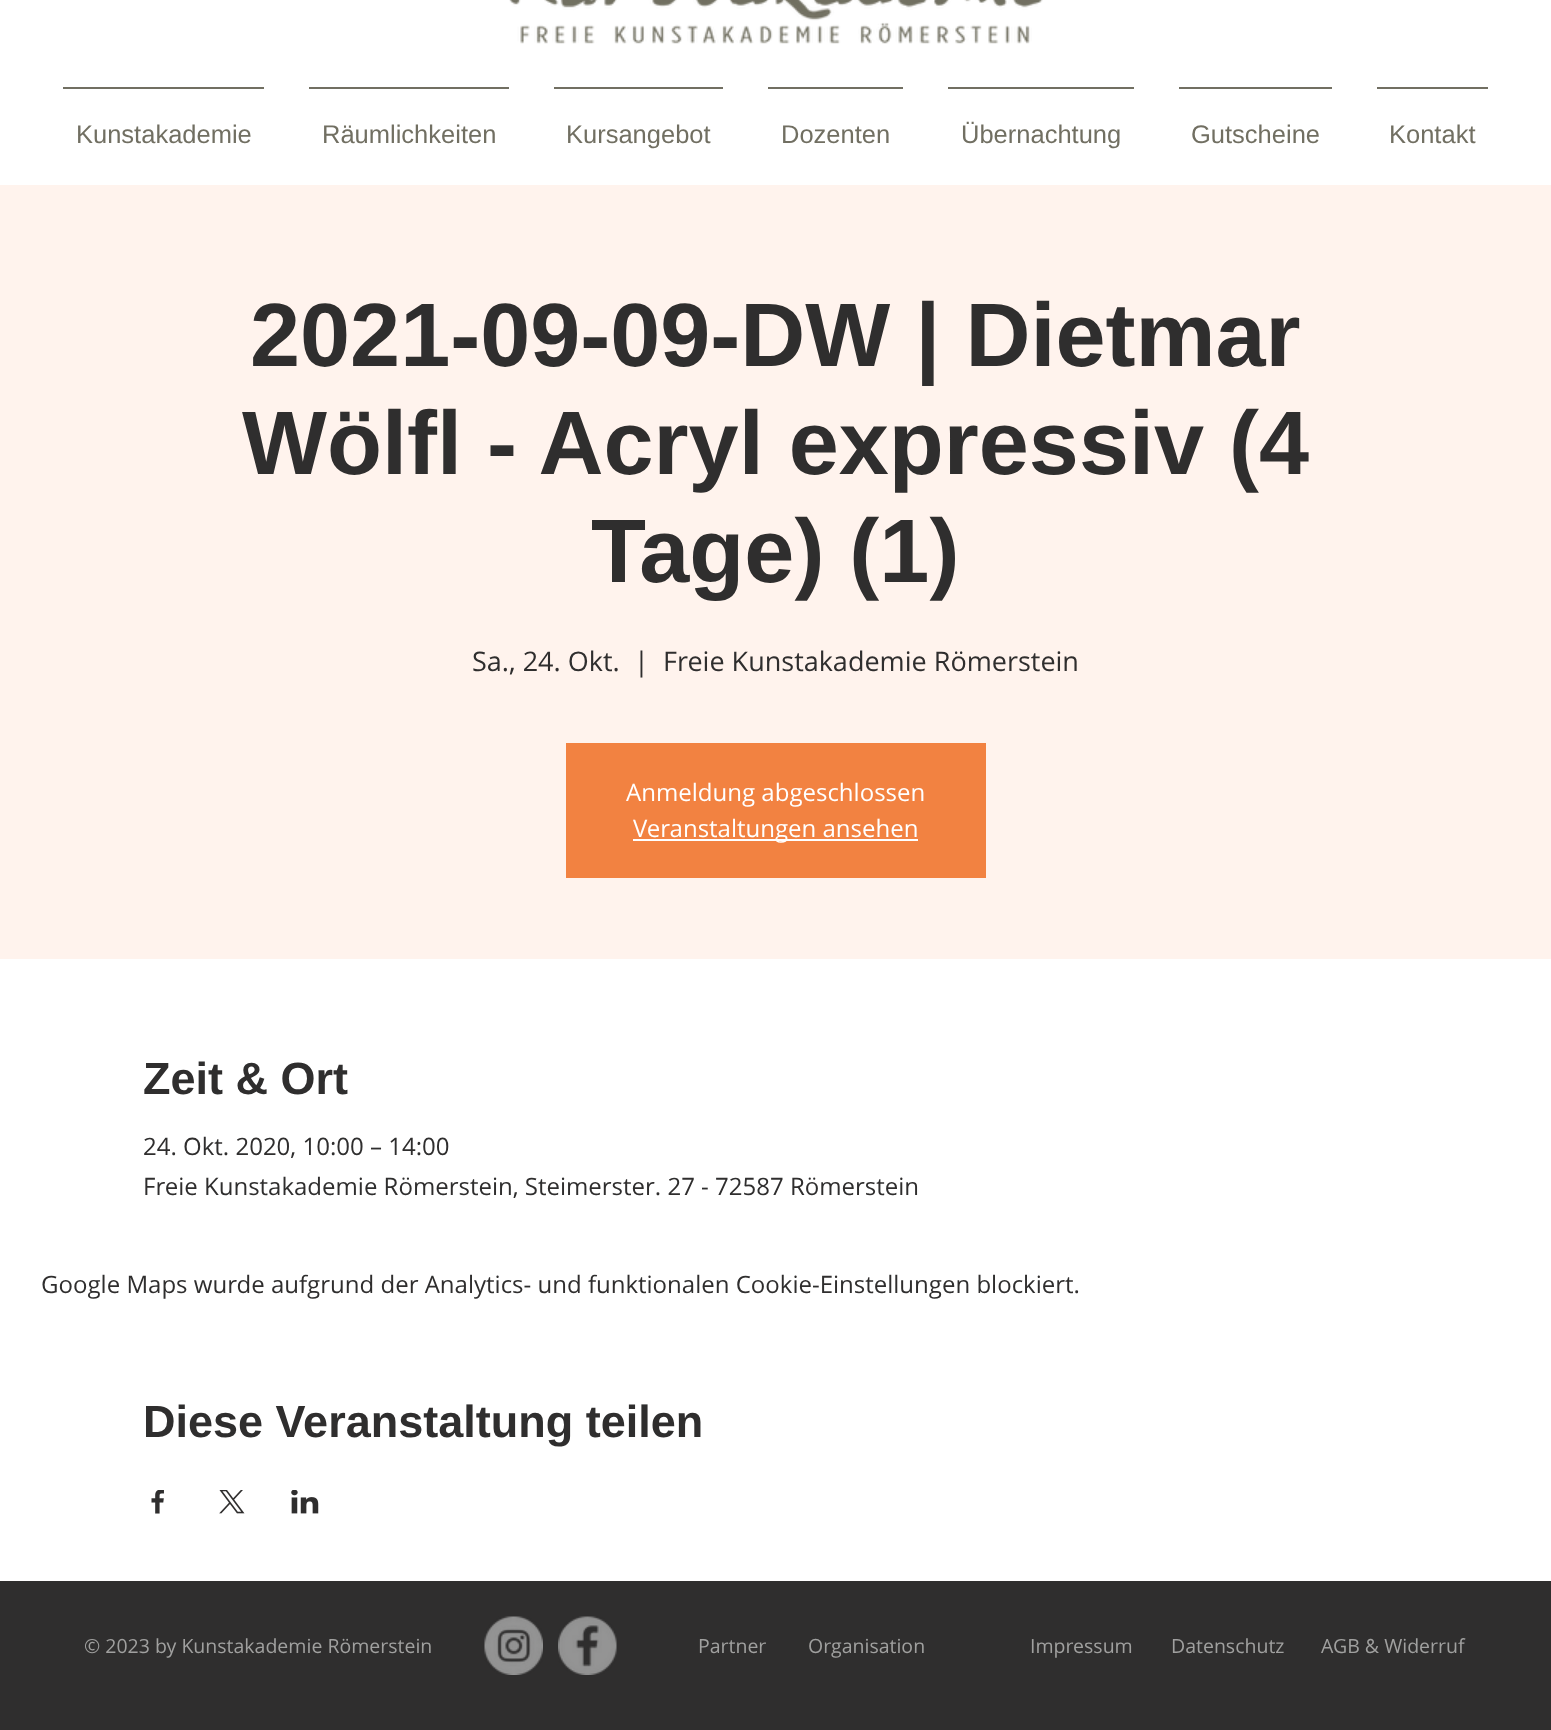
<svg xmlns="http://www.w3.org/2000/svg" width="1551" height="1730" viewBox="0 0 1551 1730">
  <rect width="100%" height="100%" fill="rgb(255,255,255)"/>
  <image x="509" y="0" width="534" height="44" href="pic1.png"/>
  <rect x="63" y="87" width="201" height="2" fill="rgb(113,111,98)"/>
  <text x="76" y="143" font-family="Liberation Sans" font-size="25.5" fill="rgb(113,111,98)">Kunstakademie</text>
  <rect x="309" y="87" width="200" height="2" fill="rgb(113,111,98)"/>
  <text x="322" y="143" font-family="Liberation Sans" font-size="25.5" fill="rgb(113,111,98)">Räumlichkeiten</text>
  <rect x="554" y="87" width="169" height="2" fill="rgb(113,111,98)"/>
  <text x="566" y="143" font-family="Liberation Sans" font-size="25.5" fill="rgb(113,111,98)">Kursangebot</text>
  <rect x="768" y="87" width="135" height="2" fill="rgb(113,111,98)"/>
  <text x="781" y="143" font-family="Liberation Sans" font-size="25.5" fill="rgb(113,111,98)">Dozenten</text>
  <rect x="948" y="87" width="186" height="2" fill="rgb(113,111,98)"/>
  <text x="961" y="143" font-family="Liberation Sans" font-size="25.5" fill="rgb(113,111,98)">Übernachtung</text>
  <rect x="1179" y="87" width="153" height="2" fill="rgb(113,111,98)"/>
  <text x="1191" y="143" font-family="Liberation Sans" font-size="25.5" fill="rgb(113,111,98)">Gutscheine</text>
  <rect x="1377" y="87" width="111" height="2" fill="rgb(113,111,98)"/>
  <text x="1389" y="143" font-family="Liberation Sans" font-size="25.5" fill="rgb(113,111,98)">Kontakt</text>
  <rect x="0" y="185" width="1551" height="774" fill="rgb(255,243,237)"/>
  <g font-family="Liberation Sans" font-size="90" font-weight="bold" fill="rgb(47,46,46)">
    <text x="250" y="366">2021-09-09-DW | Dietmar</text>
    <text x="242" y="474">Wölfl - Acryl expressiv (4</text>
    <text x="591" y="582">Tage) (1)</text>
  </g>
  <g font-family="Open Sans" font-size="27" fill="rgb(47,46,46)">
    <text x="472" y="671">Sa., 24. Okt.</text>
    <text x="634" y="671">|</text>
    <text x="663" y="671">Freie Kunstakademie Römerstein</text>
  </g>
  <rect x="566" y="743" width="420" height="135" fill="rgb(242,130,65)"/>
  <text x="626" y="801" font-family="Open Sans" font-size="24" fill="rgb(255,255,255)">Anmeldung abgeschlossen</text>
  <rect x="633" y="839" width="285" height="2" fill="rgb(255,255,255)"/>
  <text x="633" y="837" font-family="Open Sans" font-size="24" fill="rgb(255,255,255)">Veranstaltungen ansehen</text>
  <text x="143" y="1094" font-family="Liberation Sans" font-size="45" font-weight="bold" fill="rgb(47,46,46)">Zeit &amp; Ort</text>
  <g font-family="Open Sans" font-size="24" fill="rgb(47,46,46)">
    <text>
      <tspan x="143" y="1155">24. Okt. 2020, 10:00 – 14:00</tspan>
      <tspan x="143" y="1195">Freie Kunstakademie Römerstein, Steimerster. 27 - 72587 Römerstein</tspan>
    </text>
    <text x="41" y="1293">Google Maps wurde aufgrund der Analytics- und funktionalen Cookie-Einstellungen blockiert.</text>
  </g>
  <text x="143" y="1437" font-family="Liberation Sans" font-size="45" font-weight="bold" fill="rgb(47,46,46)">Diese Veranstaltung teilen</text>
  <image x="151" y="1490" width="13" height="24" href="pic2.png"/>
  <image x="219" y="1490" width="26" height="24" href="pic3.png"/>
  <image x="291" y="1490" width="28" height="24" href="pic4.png"/>
  <rect x="0" y="1581" width="1551" height="149" fill="rgb(47,46,46)"/>
  <text x="84" y="1653" font-family="Open Sans" font-size="19.5" fill="rgb(160,160,159)">© 2023 by Kunstakademie Römerstein</text>
  <image x="484" y="1616" width="59" height="59" href="pic5.png"/>
  <image x="558" y="1616" width="59" height="59" href="pic6.png"/>
  <g font-family="Open Sans" font-size="19.5" fill="rgb(160,160,159)">
    <text x="698" y="1653">Partner</text>
    <text x="808" y="1653">Organisation</text>
    <text x="1030" y="1653">Impressum</text>
    <text x="1171" y="1653">Datenschutz</text>
    <text x="1321" y="1653">AGB &amp; Widerruf</text>
  </g>
</svg>
